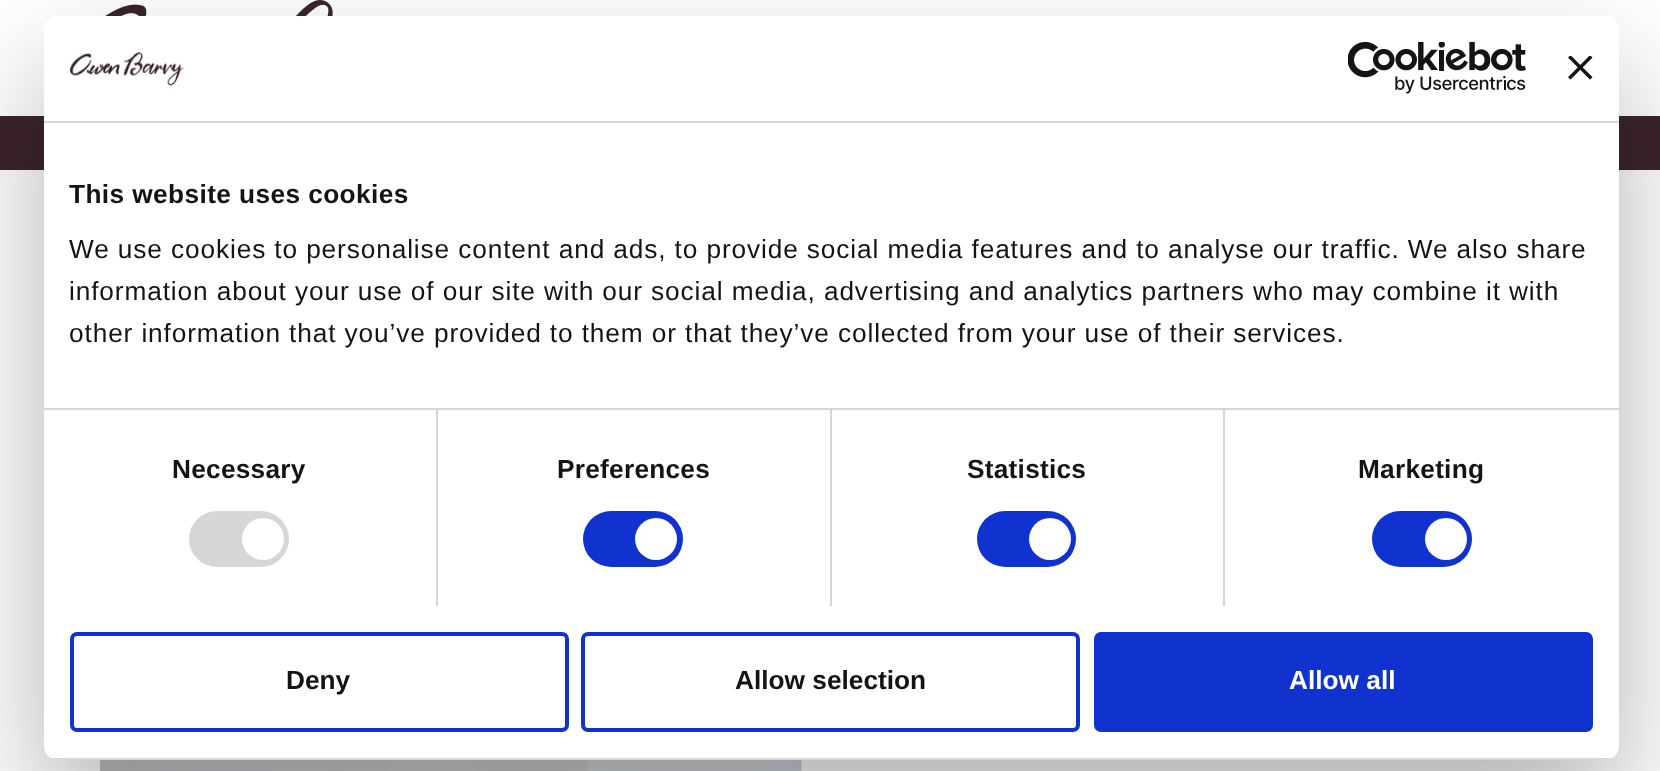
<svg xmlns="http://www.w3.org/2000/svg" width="1660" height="771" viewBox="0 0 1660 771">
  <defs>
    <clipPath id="clip1"><rect x="44" y="16" width="1575" height="744" rx="14"/></clipPath>
  </defs>
  <rect width="100%" height="100%" fill="rgb(255,255,255)"/>
  <image x="105" y="0" width="228" height="16" href="pic1.png"/>
  <rect x="0" y="116" width="1660" height="54" fill="rgb(60,37,43)"/>
  <image x="100" y="760" width="702" height="11" href="pic2.png"/>
  <rect x="44" y="72" width="1575" height="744" rx="14" fill="rgba(0,0,0,0.3)" filter="blur(59.5px)"/>
  <rect x="44" y="16" width="1575" height="744" rx="14" fill="rgb(255,255,255)"/>
  <rect x="44" y="121" width="1575" height="2" fill="rgb(214,214,214)"/>
  <image x="70" y="52" width="114" height="34" href="pic3.png"/>
  <image x="1348" y="42" width="178" height="52" href="pic4.png"/>
  <image x="1568" y="56" width="25" height="24" href="pic5.png"/>
  <rect x="44" y="408" width="1575" height="2" fill="rgb(214,214,214)"/>
  <text x="69" y="203" font-family="Liberation Sans" font-size="26.25" font-weight="bold" letter-spacing="0.4" fill="rgb(20,20,20)">This website uses cookies</text>
  <g font-family="Liberation Sans" font-size="26.25" letter-spacing="0.88" fill="rgb(20,20,20)">
    <text>
      <tspan x="69" y="258">We use cookies to personalise content and ads, to provide social media features and to analyse our traffic. We also share</tspan>
      <tspan x="69" y="300">information about your use of our site with our social media, advertising and analytics partners who may combine it with</tspan>
      <tspan x="69" y="342">other information that you’ve provided to them or that they’ve collected from your use of their services.</tspan>
    </text>
  </g>
  <rect x="436" y="410" width="2" height="196" fill="rgb(214,214,214)"/>
  <text x="172" y="478" font-family="Liberation Sans" font-size="26.25" font-weight="bold" letter-spacing="0.25" fill="rgb(20,20,20)">Necessary</text>
  <rect x="189" y="511" width="100" height="56" rx="28" fill="rgb(214,214,214)"/>
  <circle cx="263" cy="539" r="21" fill="rgb(255,255,255)"/>
  <rect x="830" y="410" width="2" height="196" fill="rgb(214,214,214)"/>
  <text x="557" y="478" font-family="Liberation Sans" font-size="26.25" font-weight="bold" letter-spacing="0.25" fill="rgb(20,20,20)">Preferences</text>
  <rect x="583" y="511" width="100" height="56" rx="28" fill="rgb(16,50,207)"/>
  <circle cx="656" cy="539" r="21" fill="rgb(255,255,255)"/>
  <rect x="1223" y="410" width="2" height="196" fill="rgb(214,214,214)"/>
  <text x="967" y="478" font-family="Liberation Sans" font-size="26.25" font-weight="bold" letter-spacing="0.25" fill="rgb(20,20,20)">Statistics</text>
  <rect x="977" y="511" width="99" height="56" rx="28" fill="rgb(16,50,207)"/>
  <circle cx="1050" cy="539" r="21" fill="rgb(255,255,255)"/>
  <text x="1358" y="478" font-family="Liberation Sans" font-size="26.25" font-weight="bold" letter-spacing="0.25" fill="rgb(20,20,20)">Marketing</text>
  <rect x="1372" y="511" width="100" height="56" rx="28" fill="rgb(16,50,207)"/>
  <circle cx="1446" cy="539" r="21" fill="rgb(255,255,255)"/>
  <g clip-path="url(#clip1)">
    <rect x="44" y="758" width="1575" height="2" fill="rgb(214,214,214)"/>
  </g>
  <rect x="72" y="634" width="495" height="96" rx="5" fill="none" stroke="rgb(16,50,207)" stroke-width="4"/>
  <text x="286" y="689" font-family="Liberation Sans" font-size="26.25" font-weight="bold" fill="rgb(20,20,20)">Deny</text>
  <rect x="583" y="634" width="495" height="96" rx="5" fill="none" stroke="rgb(16,50,207)" stroke-width="4"/>
  <text x="735" y="689" font-family="Liberation Sans" font-size="26.25" font-weight="bold" fill="rgb(20,20,20)">Allow selection</text>
  <rect x="1096" y="634" width="495" height="96" rx="5" fill="rgb(16,50,207)" stroke="rgb(16,50,207)" stroke-width="4"/>
  <text x="1289" y="689" font-family="Liberation Sans" font-size="26.25" font-weight="bold" fill="rgb(255,255,255)">Allow all</text>
</svg>
